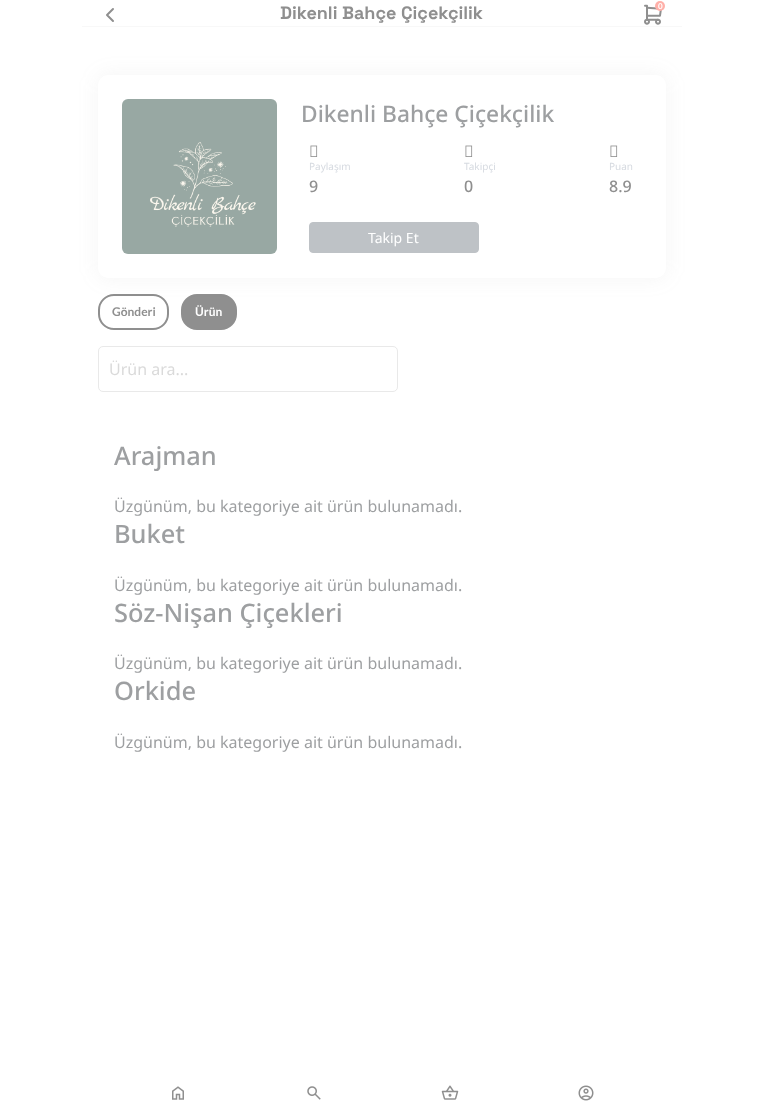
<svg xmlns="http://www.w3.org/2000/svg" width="763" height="1113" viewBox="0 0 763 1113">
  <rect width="100%" height="100%" fill="rgb(255,255,255)"/>
  <image x="106" y="8" width="8" height="14" href="pic1.png"/>
  <text x="280" y="19" font-family="Space Grotesk" font-size="18" font-weight="bold" fill="rgb(143,143,143)">Dikenli Bahçe Çiçekçilik</text>
  <image x="644" y="4" width="18" height="21" href="pic2.png"/>
  <circle cx="660" cy="6" r="5" fill="rgb(255,176,169)"/>
  <text x="658" y="9" font-family="Lato" font-size="8" font-weight="bold" fill="rgb(255,255,255)">0</text>
  <rect x="82" y="26" width="600" height="1" fill="rgb(248,248,248)"/>
  <rect x="99" y="295" width="69" height="34" rx="15" fill="none" stroke="rgb(143,143,143)" stroke-width="2"/>
  <rect x="182" y="295" width="54" height="34" rx="15" fill="rgb(143,143,143)" stroke="rgb(143,143,143)" stroke-width="2"/>
  <rect x="98" y="75" width="568" height="203" rx="10" fill="rgba(143,143,143,0.1)" filter="blur(10px)"/>
  <rect x="98" y="75" width="568" height="203" rx="10" fill="rgb(255,255,255)"/>
  <image x="122" y="99" width="155" height="155" href="pic3.png"/>
  <text x="301" y="122" font-family="Noto Sans" font-size="22.75" font-weight="500" fill="rgb(157,159,161)">Dikenli Bahçe Çiçekçilik</text>
  <image x="310" y="145" width="8" height="12" href="pic4.png"/>
  <text x="309" y="170" font-family="Noto Sans" font-size="10" fill="rgb(214,218,224)">Paylaşım</text>
  <text x="309" y="192" font-family="Noto Sans" font-size="16" font-weight="500" fill="rgb(143,143,143)">9</text>
  <image x="465" y="145" width="8" height="12" href="pic4.png"/>
  <text x="464" y="170" font-family="Noto Sans" font-size="10" fill="rgb(214,218,224)">Takipçi</text>
  <text x="464" y="192" font-family="Noto Sans" font-size="16" font-weight="500" fill="rgb(143,143,143)">0</text>
  <image x="610" y="145" width="8" height="12" href="pic4.png"/>
  <text x="609" y="170" font-family="Noto Sans" font-size="10" fill="rgb(214,218,224)">Puan</text>
  <text x="609" y="192" font-family="Noto Sans" font-size="16" font-weight="500" fill="rgb(143,143,143)">8.9</text>
  <rect x="309.5" y="222.5" width="169" height="30" rx="3.5" fill="rgb(190,194,198)" stroke="rgb(190,194,198)"/>
  <text x="368" y="243" font-family="Noto Sans" font-size="14" fill="rgb(255,255,255)">Takip Et</text>
  <text x="112" y="316" font-family="Lato" font-size="12" font-weight="bold" fill="rgb(143,143,143)">Gönderi</text>
  <text x="195" y="316" font-family="Lato" font-size="12" font-weight="bold" fill="rgb(255,255,255)">Ürün</text>
  <rect x="98.5" y="346.5" width="299" height="45" rx="4.5" fill="none" stroke="rgb(233,233,233)"/>
  <text x="109" y="375" font-family="Noto Sans" font-size="16" fill="rgb(218,218,218)">Ürün ara...</text>
  <text x="114" y="465" font-family="Noto Sans" font-size="25.4" font-weight="500" fill="rgb(157,159,161)">Arajman</text>
  <text x="114" y="512" font-family="Noto Sans" font-size="16" fill="rgb(157,159,161)">Üzgünüm, bu kategoriye ait ürün bulunamadı.</text>
  <text x="114" y="543" font-family="Noto Sans" font-size="25.4" font-weight="500" fill="rgb(157,159,161)">Buket</text>
  <text x="114" y="591" font-family="Noto Sans" font-size="16" fill="rgb(157,159,161)">Üzgünüm, bu kategoriye ait ürün bulunamadı.</text>
  <text x="114" y="622" font-family="Noto Sans" font-size="25.4" font-weight="500" fill="rgb(157,159,161)">Söz-Nişan Çiçekleri</text>
  <text x="114" y="669" font-family="Noto Sans" font-size="16" fill="rgb(157,159,161)">Üzgünüm, bu kategoriye ait ürün bulunamadı.</text>
  <text x="114" y="700" font-family="Noto Sans" font-size="25.4" font-weight="500" fill="rgb(157,159,161)">Orkide</text>
  <text x="114" y="748" font-family="Noto Sans" font-size="16" fill="rgb(157,159,161)">Üzgünüm, bu kategoriye ait ürün bulunamadı.</text>
  <image x="172" y="1086" width="12" height="14" href="pic5.png"/>
  <image x="307" y="1086" width="14" height="14" href="pic6.png"/>
  <image x="441" y="1085" width="18" height="15" href="pic7.png"/>
  <image x="578" y="1085" width="16" height="16" href="pic8.png"/>
</svg>
